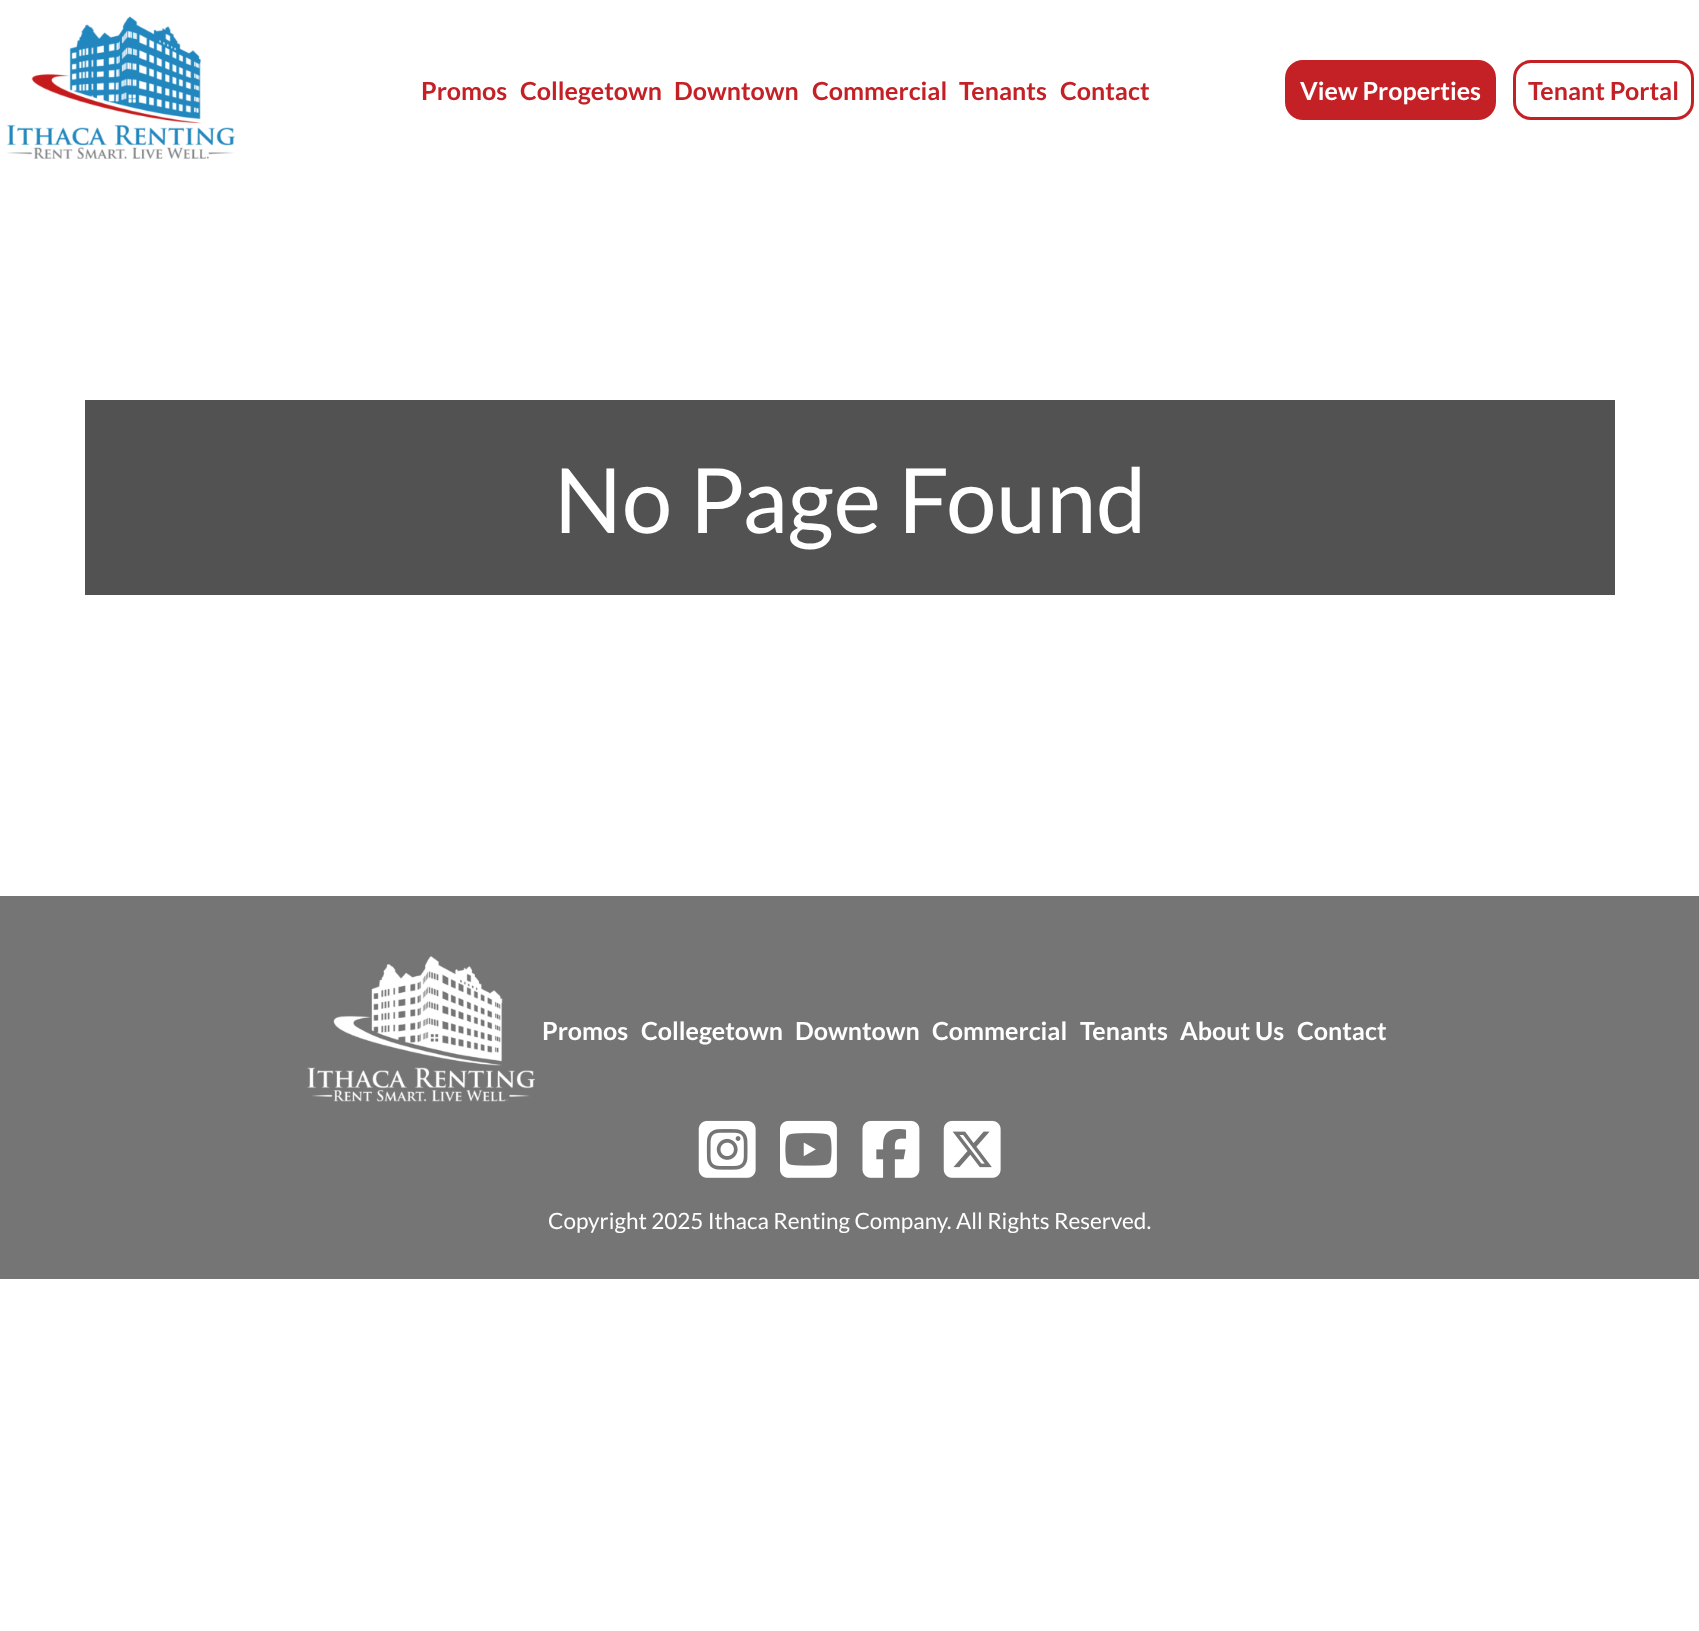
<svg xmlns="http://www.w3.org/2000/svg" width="1699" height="1631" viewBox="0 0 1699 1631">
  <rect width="100%" height="100%" fill="rgb(255,255,255)"/>
  <image x="7" y="16" width="228" height="143" href="pic1.png"/>
  <g font-family="Lato" font-size="25" font-weight="bold" fill="rgb(196,33,39)">
    <text x="421" y="100">Promos</text>
    <text x="520" y="100">Collegetown</text>
    <text x="674" y="100">Downtown</text>
    <text x="812" y="100">Commercial</text>
    <text x="959" y="100">Tenants</text>
    <text x="1060" y="100">Contact</text>
  </g>
  <rect x="1286.5" y="61.5" width="208" height="57" rx="16.5" fill="rgb(196,33,39)" stroke="rgb(196,33,39)" stroke-width="3"/>
  <text x="1300" y="100" font-family="Lato" font-size="25" font-weight="bold" fill="rgb(255,255,255)">View Properties</text>
  <rect x="1514.5" y="61.5" width="178" height="57" rx="16.5" fill="none" stroke="rgb(196,33,39)" stroke-width="3"/>
  <text x="1528" y="100" font-family="Lato" font-size="25" font-weight="bold" fill="rgb(196,33,39)">Tenant Portal</text>
  <rect x="85" y="400" width="1530" height="195" fill="rgb(82,82,82)"/>
  <text x="554" y="533" font-family="Lato" font-size="90" fill="rgb(255,255,255)">No Page Found</text>
  <rect x="0" y="896" width="1699" height="383" fill="rgb(117,117,117)"/>
  <image x="307" y="956" width="228" height="146" href="pic2.png"/>
  <g font-family="Lato" font-size="25" font-weight="bold" fill="rgb(255,255,255)">
    <text x="542" y="1040">Promos</text>
    <text x="641" y="1040">Collegetown</text>
    <text x="795" y="1040">Downtown</text>
    <text x="932" y="1040">Commercial</text>
    <text x="1080" y="1040">Tenants</text>
    <text x="1180" y="1040">About Us</text>
    <text x="1297" y="1040">Contact</text>
  </g>
  <image x="698" y="1120" width="58" height="58" href="pic3.png"/>
  <image x="780" y="1120" width="57" height="58" href="pic4.png"/>
  <image x="862" y="1120" width="58" height="58" href="pic5.png"/>
  <image x="943" y="1120" width="58" height="58" href="pic6.png"/>
  <text x="548" y="1229" font-family="Lato" font-size="22.5" fill="rgb(255,255,255)">Copyright 2025 Ithaca Renting Company. All Rights Reserved.</text>
</svg>
